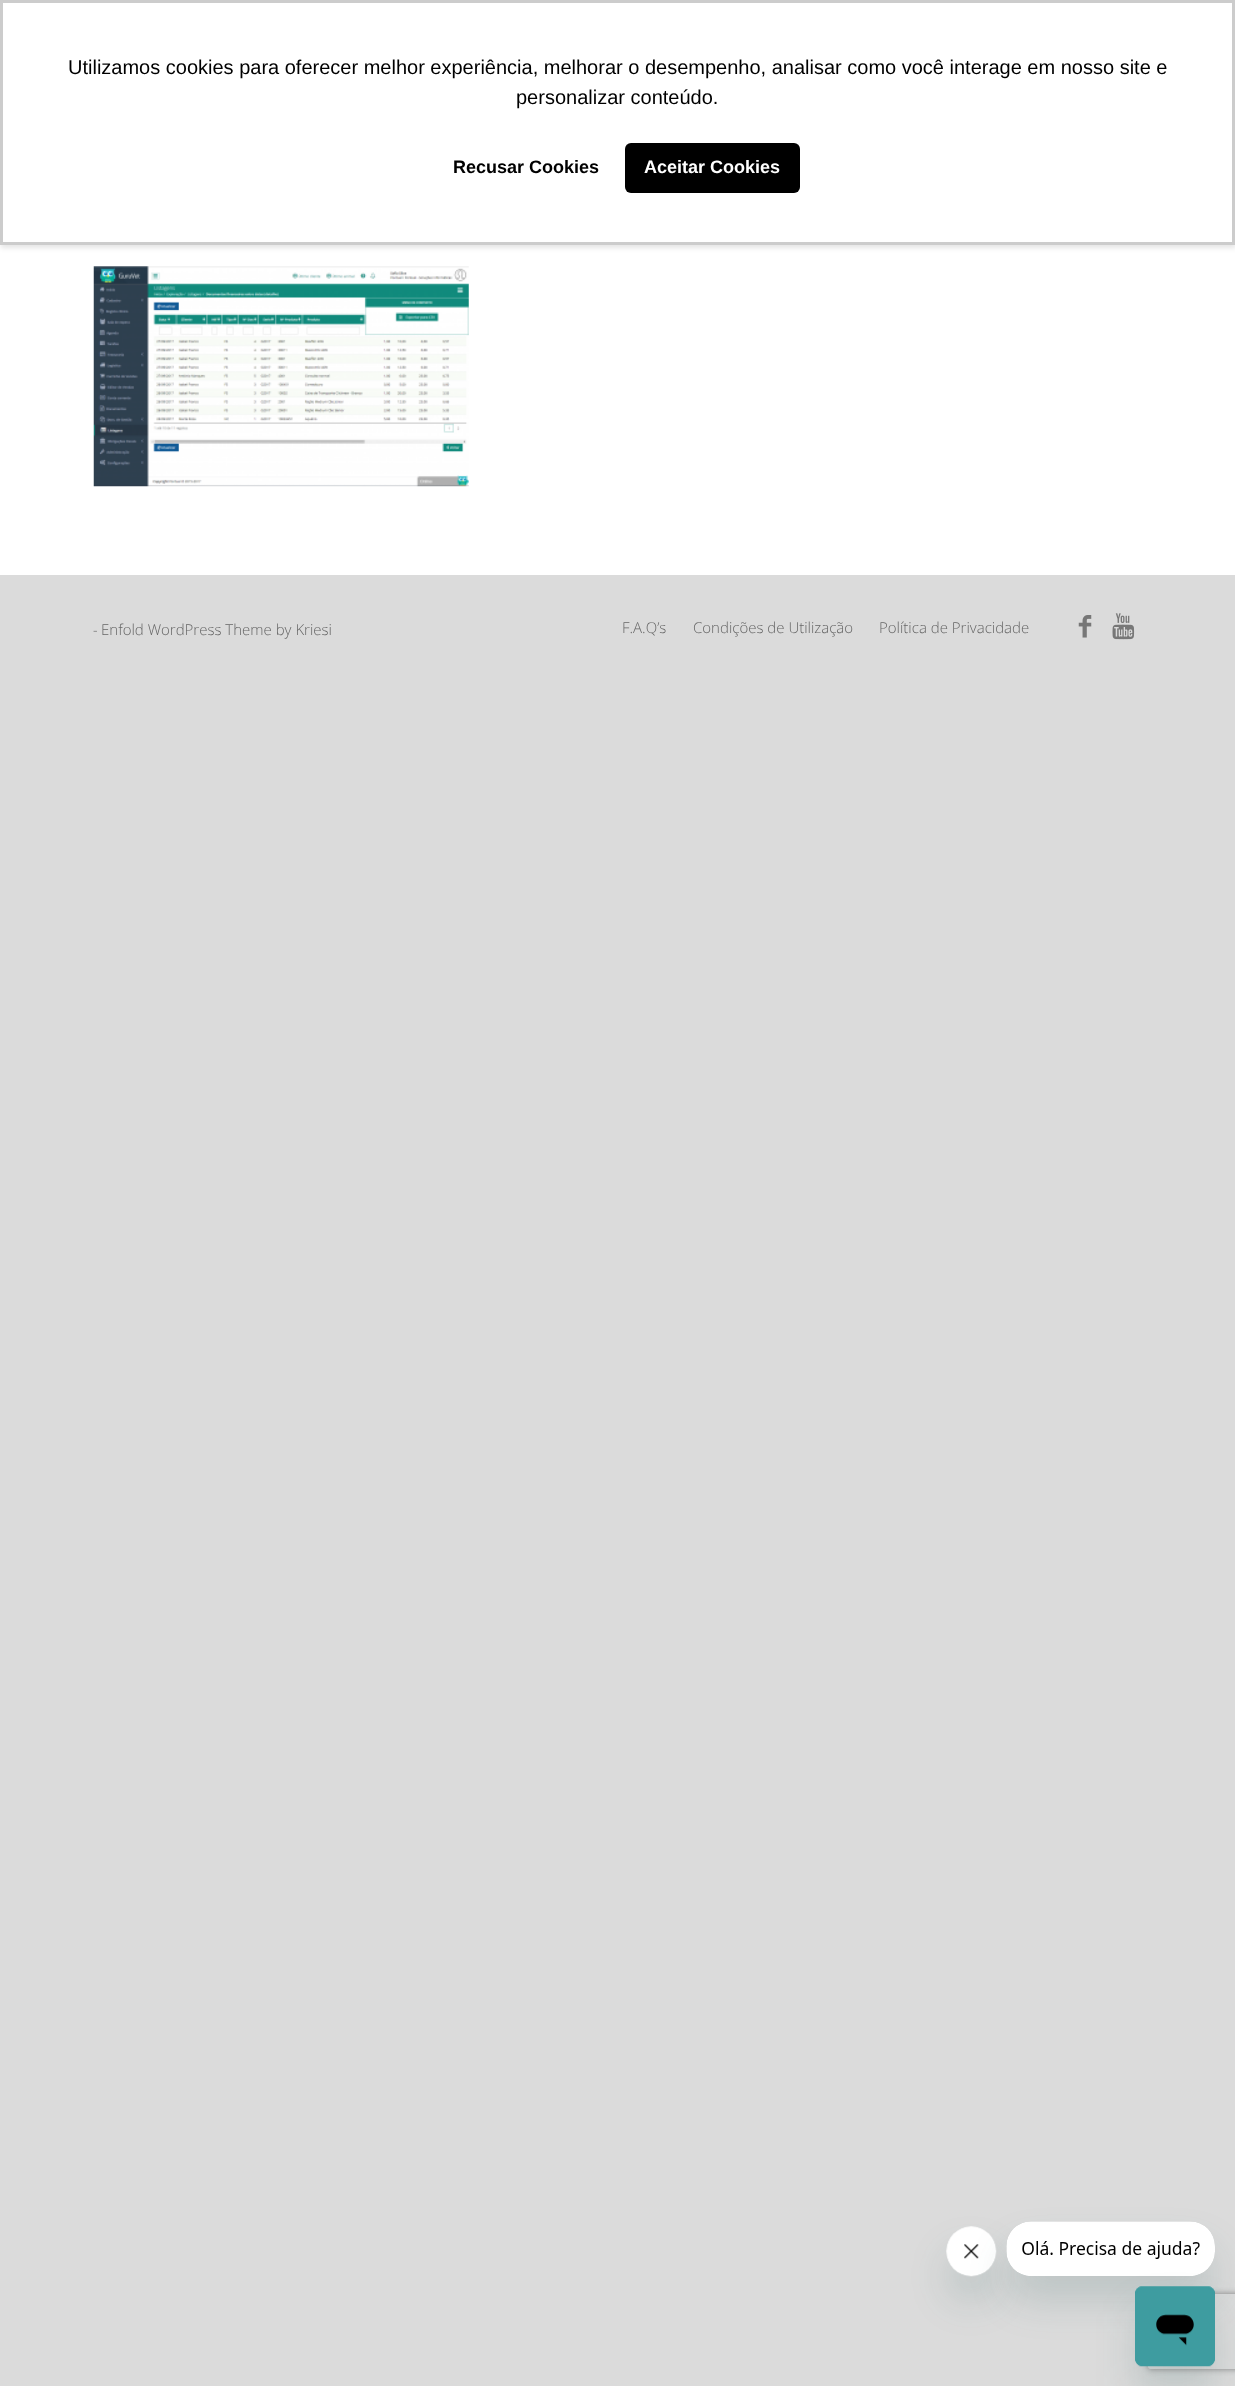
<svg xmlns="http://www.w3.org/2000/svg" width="1235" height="2386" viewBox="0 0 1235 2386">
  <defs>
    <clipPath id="clip1"><path d="M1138 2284H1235V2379H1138ZM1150.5 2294H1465.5C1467 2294 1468 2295 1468 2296.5V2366.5C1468 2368 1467 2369 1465.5 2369H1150.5C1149 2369 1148 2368 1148 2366.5V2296.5C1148 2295 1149 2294 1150.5 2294Z" clip-rule="evenodd"/></clipPath>
  </defs>
  <rect width="100%" height="100%" fill="rgb(219,219,219)"/>
  <rect x="0" y="245" width="1235" height="330" fill="rgb(255,255,255)"/>
  <rect x="1" y="3" width="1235" height="245" fill="rgba(0,0,0,0.1)" filter="blur(2.5px)"/>
  <rect x="1.5" y="1.5" width="1232" height="242" fill="rgb(255,255,255)" stroke="rgb(204,204,204)" stroke-width="3"/>
  <g font-family="Liberation Sans" font-size="20" fill="rgb(0,0,0)">
    <text x="68" y="74">Utilizamos cookies para oferecer melhor experiência, melhorar o desempenho, analisar como você interage em nosso site e</text>
    <text x="516" y="104">personalizar conteúdo.</text>
  </g>
  <text x="453" y="173" font-family="Liberation Sans" font-size="18" font-weight="bold" fill="rgb(0,0,0)">Recusar Cookies</text>
  <rect x="625" y="143" width="175" height="50" rx="6" fill="rgb(0,0,0)"/>
  <text x="644" y="173" font-family="Liberation Sans" font-size="18" font-weight="bold" fill="rgb(255,255,255)">Aceitar Cookies</text>
  <image x="93" y="266" width="376" height="221" href="pic1.png"/>
  <text x="93" y="635" font-family="Open Sans" font-size="14" font-weight="300" fill="rgb(102,102,102)">-</text>
  <g font-family="Open Sans" font-size="15" font-weight="300" fill="rgb(102,102,102)">
    <text x="101" y="635">Enfold WordPress Theme by Kriesi</text>
    <text x="622" y="633">F.A.Q’s</text>
    <text x="693" y="633">Condições de Utilização</text>
    <text x="879" y="633">Política de Privacidade</text>
  </g>
  <image x="1078" y="615" width="14" height="23" href="pic2.png"/>
  <image x="1112" y="613" width="23" height="27" href="pic3.png"/>
  <rect x="946" y="2251" width="50" height="50" rx="25" fill="rgba(23,73,77,0.15)" filter="blur(19px)"/>
  <image x="946" y="2226" width="51" height="51" href="pic5.png"/>
  <rect x="1006" y="2246" width="209" height="55" rx="25" fill="rgba(23,73,77,0.15)" filter="blur(19px)"/>
  <image x="1006" y="2221" width="209" height="55" href="pic4.png"/>
  <rect x="1135" y="2311" width="80" height="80" rx="8" fill="rgba(23,73,77,0.15)" filter="blur(19px)"/>
  <g clip-path="url(#clip1)">
    <rect x="1148" y="2294" width="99" height="75" rx="2.5" fill="rgb(128,128,128)" filter="blur(3px)"/>
  </g>
  <image x="1135" y="2286" width="80" height="81" href="pic6.png"/>
</svg>
